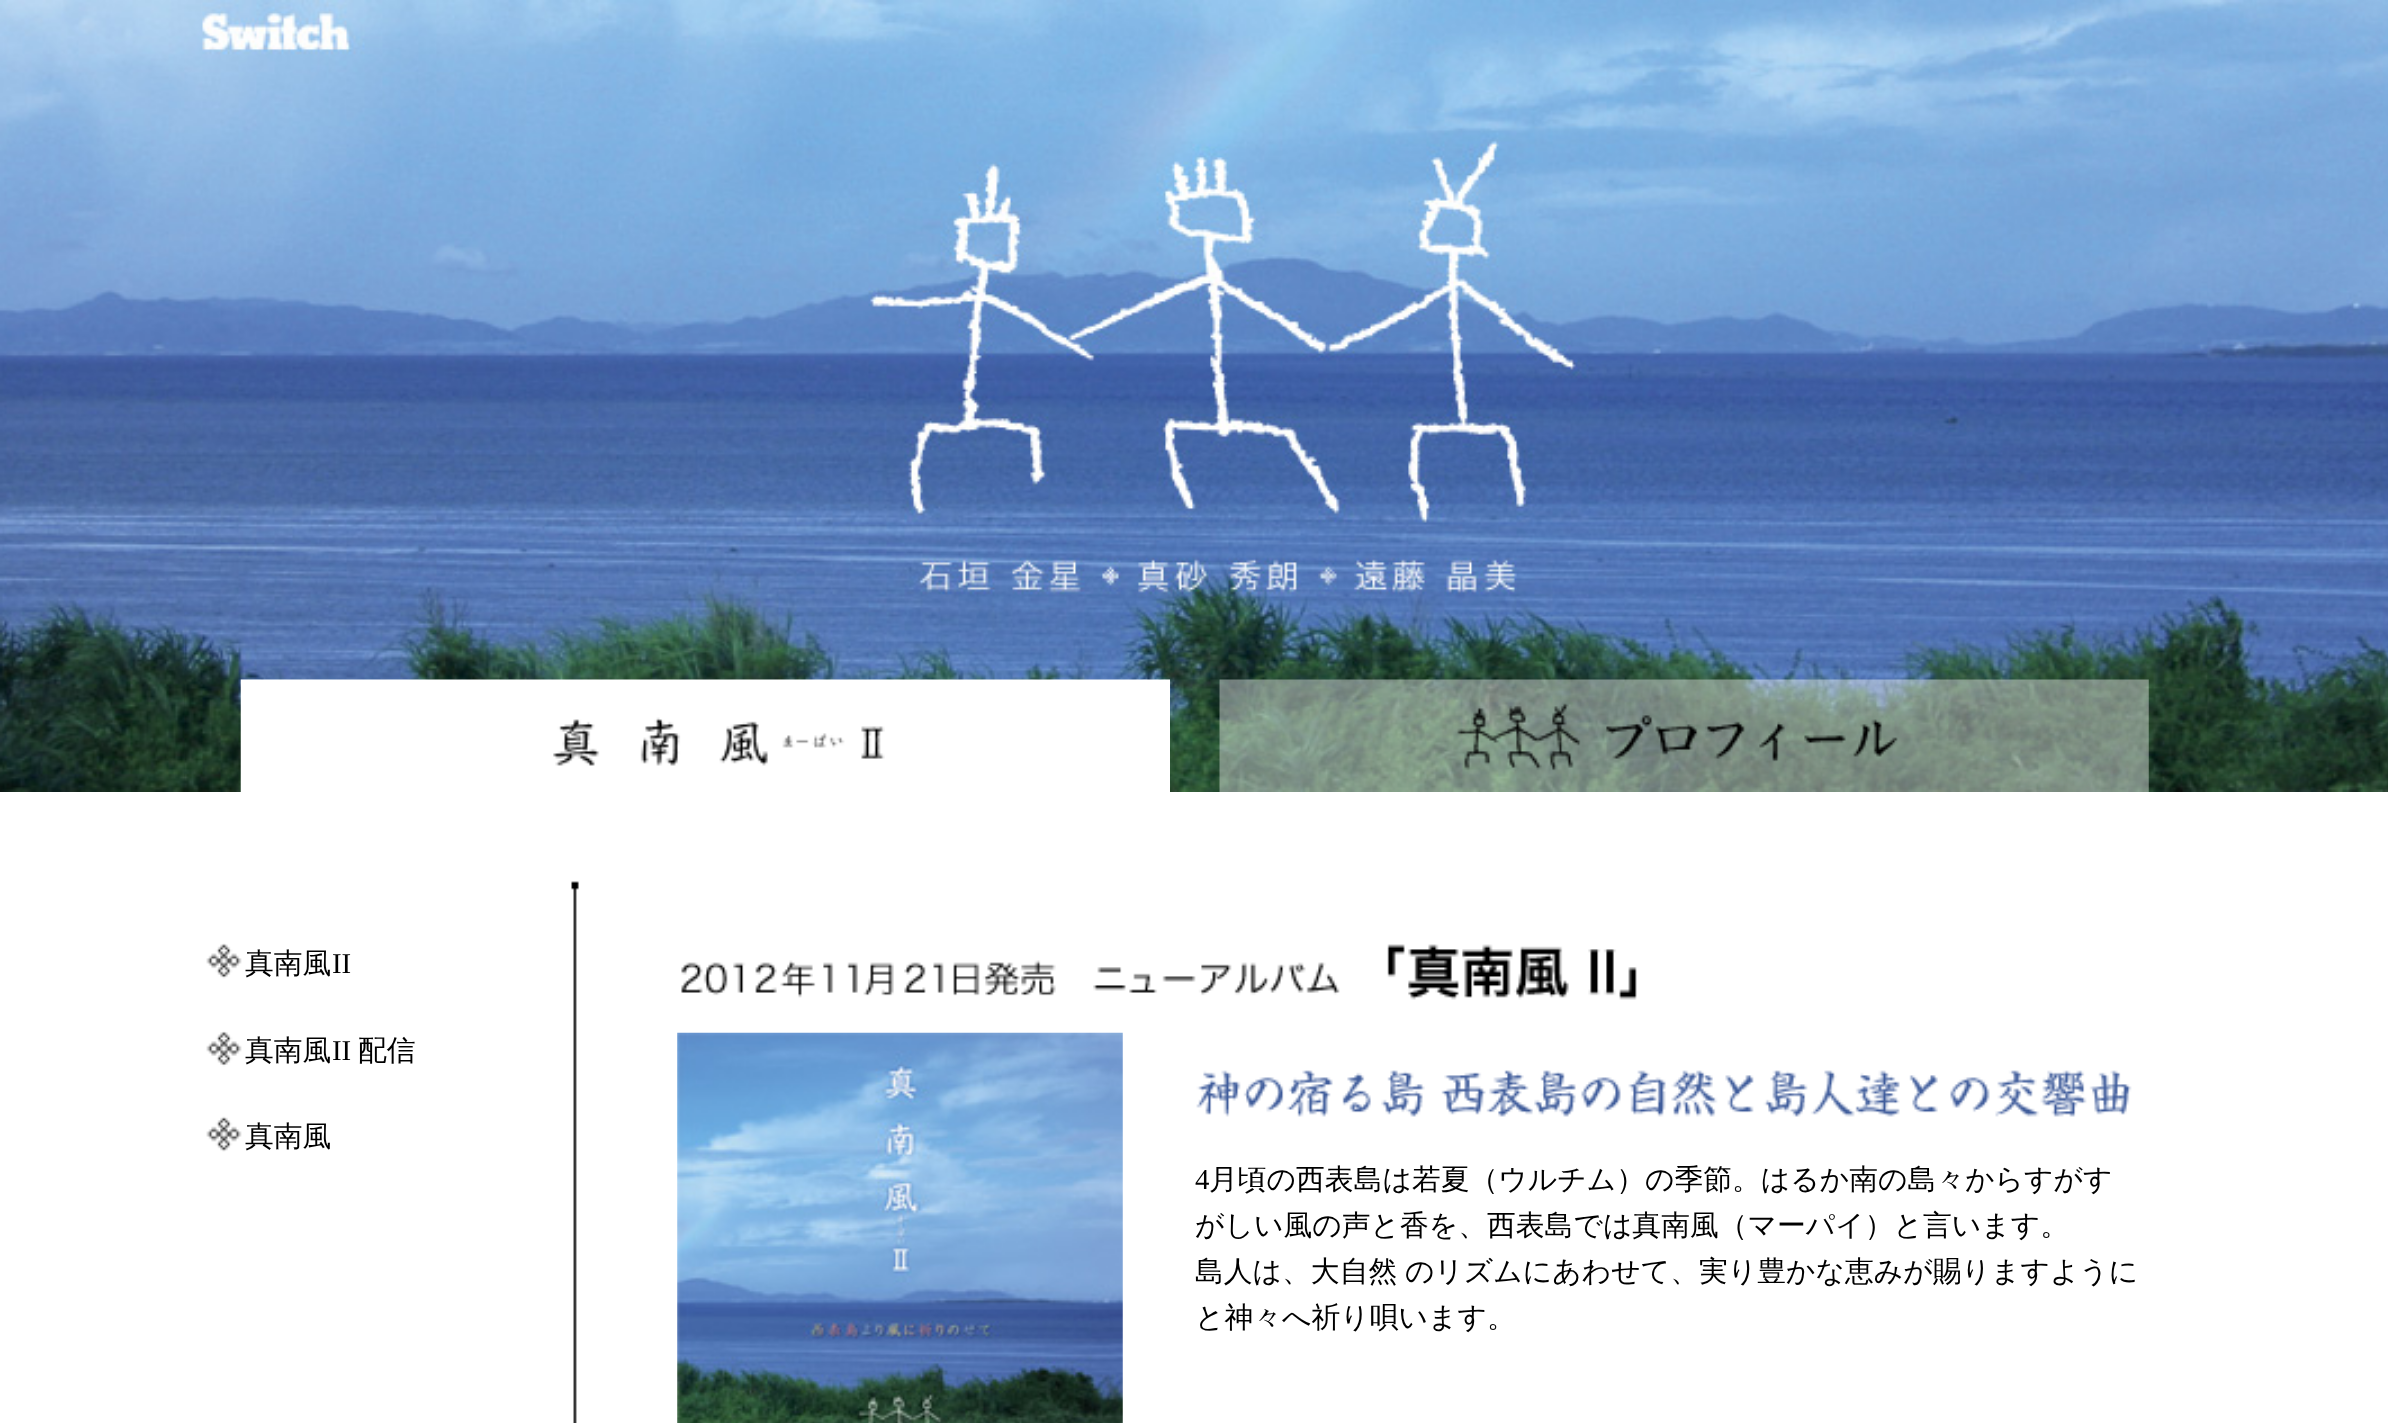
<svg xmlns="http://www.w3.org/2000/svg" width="2388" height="1423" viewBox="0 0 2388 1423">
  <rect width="100%" height="100%" fill="rgb(255,255,255)"/>
  <image x="0" y="0" width="2388" height="792" href="pic1.png"/>
  <image x="184" y="0" width="2024" height="792" href="pic2.png"/>
  <image x="240" y="679" width="930" height="113" href="pic3.png"/>
  <image x="1219" y="679" width="930" height="113" href="pic4.png"/>
  <image x="571" y="881" width="8" height="542" href="pic5.png"/>
  <image x="206" y="943" width="36" height="36" href="pic6.png"/>
  <text x="245" y="973" font-family="WenQuanYi Zen Hei" font-size="28.8" font-weight="500" fill="rgb(0,0,0)">真南風</text>
  <text x="332" y="973" font-family="Liberation Serif" font-size="28.8" fill="rgb(0,0,0)">II</text>
  <image x="206" y="1031" width="36" height="36" href="pic7.png"/>
  <text x="245" y="1060" font-family="WenQuanYi Zen Hei" font-size="28.8" font-weight="500" fill="rgb(0,0,0)">真南風</text>
  <text x="332" y="1060" font-family="Liberation Serif" font-size="28.8" fill="rgb(0,0,0)">II</text>
  <text x="358" y="1060" font-family="WenQuanYi Zen Hei" font-size="28.8" font-weight="500" fill="rgb(0,0,0)">配信</text>
  <image x="206" y="1116" width="36" height="36" href="pic8.png"/>
  <text x="245" y="1146" font-family="WenQuanYi Zen Hei" font-size="28.8" font-weight="500" fill="rgb(0,0,0)">真南風</text>
  <image x="681" y="944" width="956" height="56" href="pic9.png"/>
  <image x="677" y="1032" width="446" height="391" href="pic10.png"/>
  <image x="1196" y="1070" width="936" height="47" href="pic11.png"/>
  <text x="1195" y="1189" font-family="Liberation Serif" font-size="28.8" fill="rgb(0,0,0)">4</text>
  <g font-family="WenQuanYi Zen Hei" font-size="28.8" font-weight="500" fill="rgb(0,0,0)">
    <text x="1209" y="1189">月頃の西表島は若夏（ウルチム）の季節。はるか南の島々からすがす</text>
    <text>
      <tspan x="1195" y="1235">がしい風の声と香を、西表島では真南風（マーパイ）と言います。</tspan>
      <tspan x="1195" y="1281" word-spacing="-1">島人は、大自然 のリズムにあわせて、実り豊かな恵みが賜りますように</tspan>
      <tspan x="1195" y="1327">と神々へ祈り唄います。</tspan>
    </text>
  </g>
</svg>
